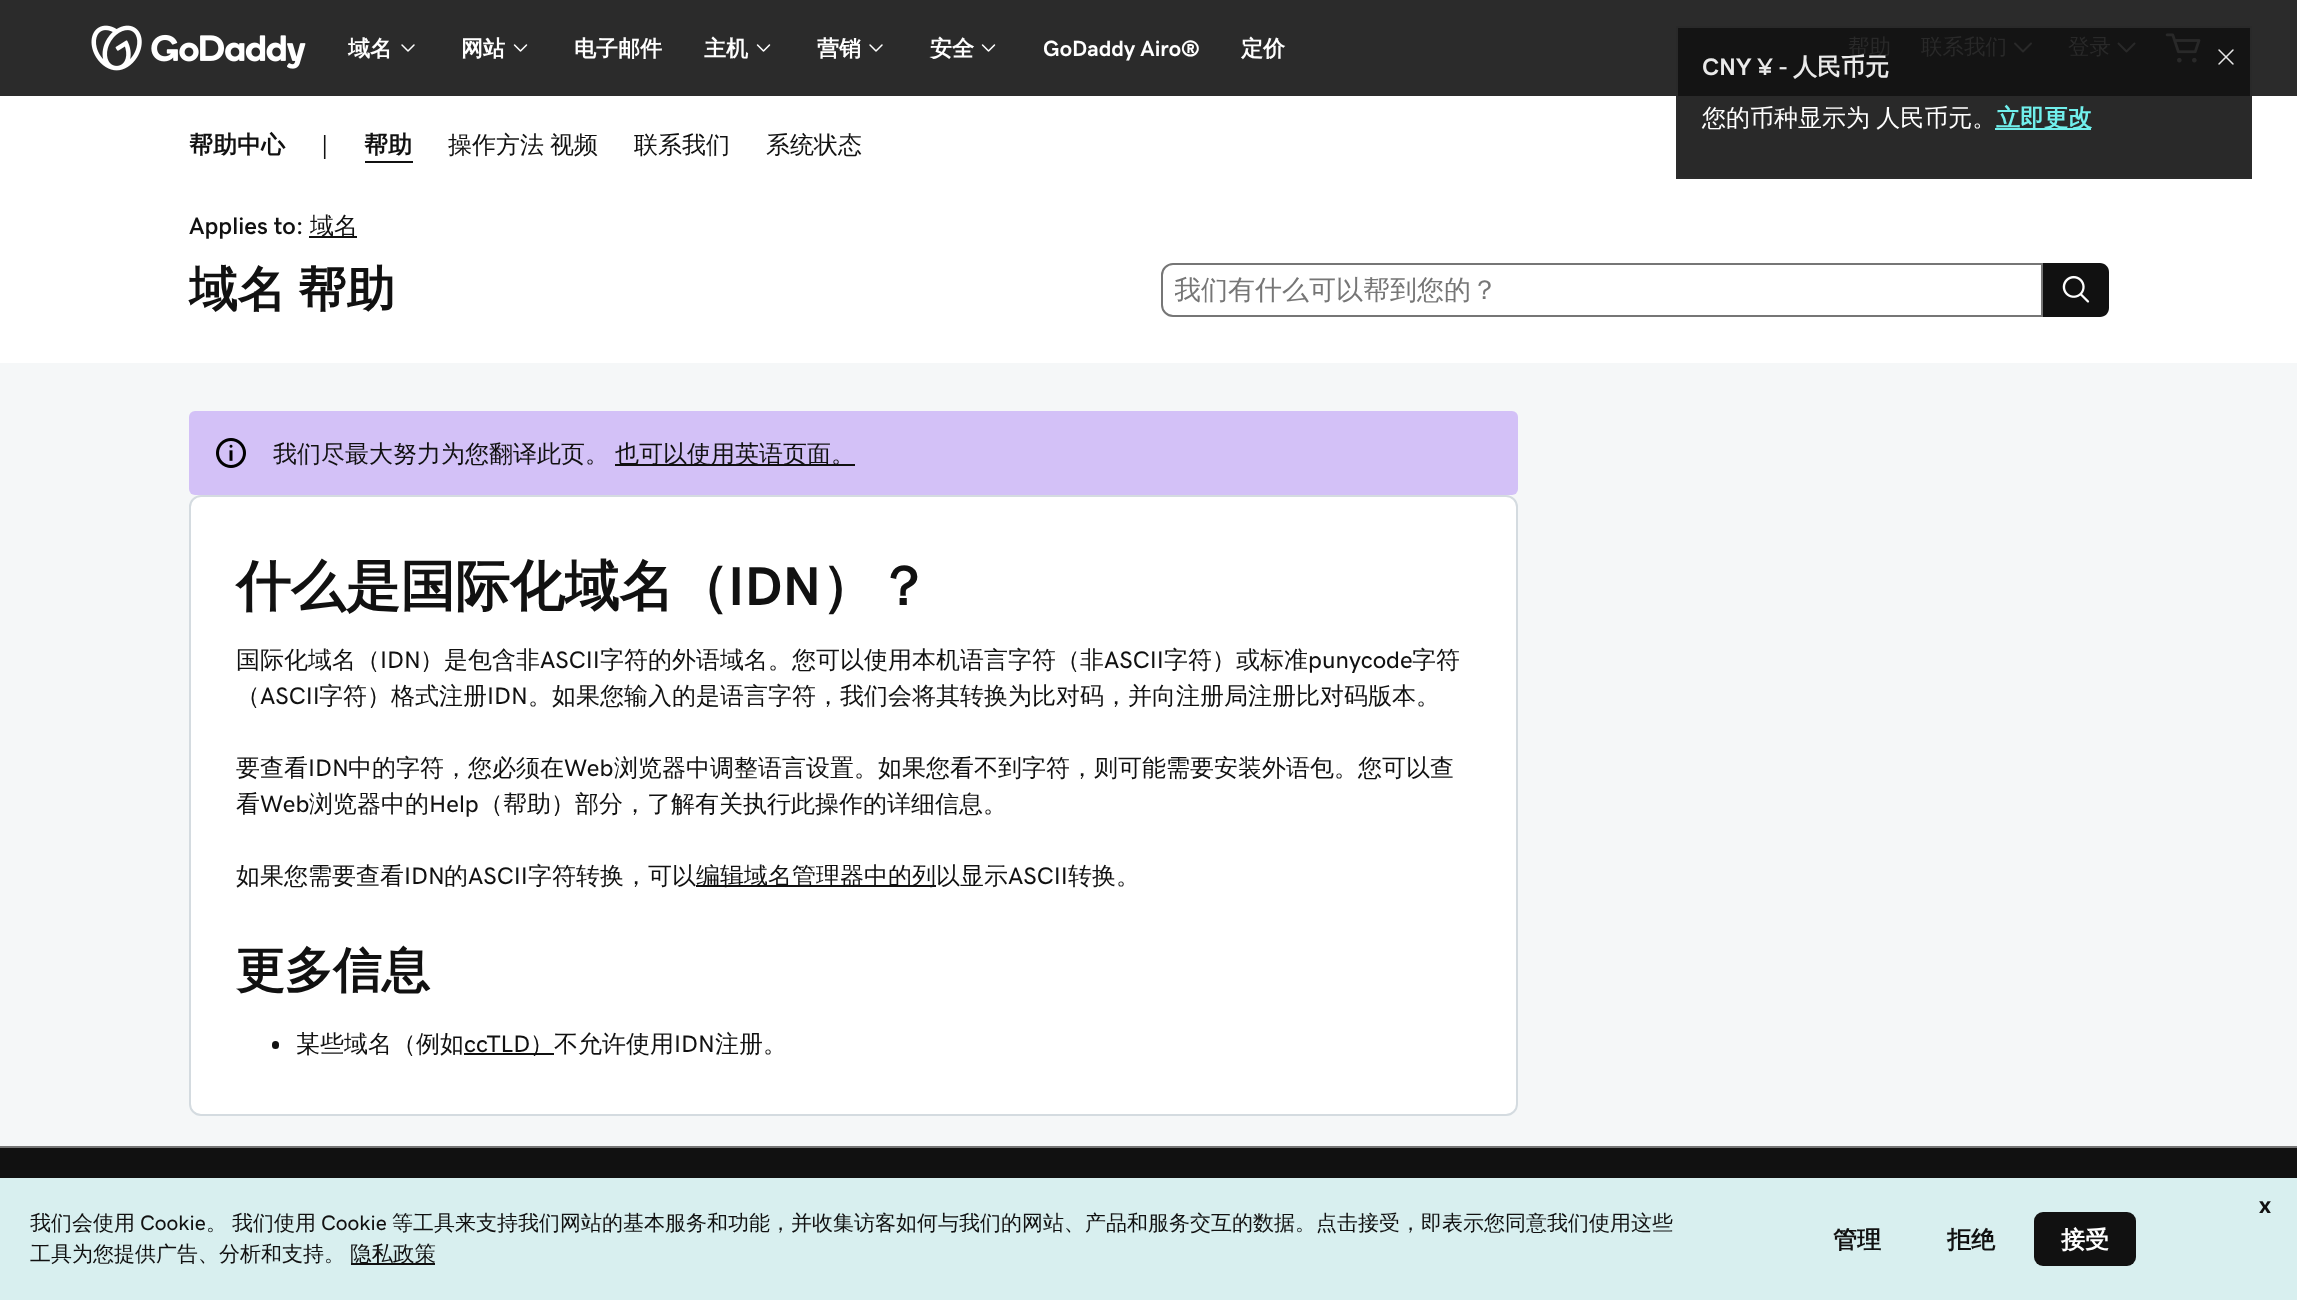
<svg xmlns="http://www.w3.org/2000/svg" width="2297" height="1300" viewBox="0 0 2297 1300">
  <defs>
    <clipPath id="clip1"><rect x="1175" y="276" width="855" height="27"/></clipPath>
  </defs>
  <rect width="100%" height="100%" fill="rgb(255,255,255)"/>
  <rect x="1676" y="96" width="576" height="83" fill="rgb(41,41,41)"/>
  <rect x="0" y="0" width="2297" height="96" fill="rgb(43,43,43)"/>
  <rect x="1676" y="26" width="576" height="70" fill="rgb(20,20,20)"/>
  <image x="91" y="25" width="215" height="46" href="pic1.png"/>
  <text x="348" y="56" font-family="WenQuanYi Zen Hei" font-size="22" font-weight="bold" fill="rgb(255,255,255)">域名</text>
  <image x="401" y="44" width="14" height="8" href="pic2.png"/>
  <text x="461" y="56" font-family="WenQuanYi Zen Hei" font-size="22" font-weight="bold" fill="rgb(255,255,255)">网站</text>
  <image x="513" y="44" width="15" height="8" href="pic3.png"/>
  <g font-family="WenQuanYi Zen Hei" font-size="22" font-weight="bold" fill="rgb(255,255,255)">
    <text x="574" y="56">电子邮件</text>
    <text x="704" y="56">主机</text>
  </g>
  <image x="756" y="44" width="15" height="8" href="pic3.png"/>
  <text x="817" y="56" font-family="WenQuanYi Zen Hei" font-size="22" font-weight="bold" fill="rgb(255,255,255)">营销</text>
  <image x="869" y="44" width="14" height="8" href="pic2.png"/>
  <text x="930" y="56" font-family="WenQuanYi Zen Hei" font-size="22" font-weight="bold" fill="rgb(255,255,255)">安全</text>
  <image x="981" y="44" width="15" height="8" href="pic3.png"/>
  <text x="1043" y="56" font-family="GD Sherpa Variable" font-size="22" font-weight="800" fill="rgb(255,255,255)">GoDaddy Airo®</text>
  <text x="1241" y="56" font-family="WenQuanYi Zen Hei" font-size="22" font-weight="bold" fill="rgb(255,255,255)">定价</text>
  <g font-family="WenQuanYi Zen Hei" font-size="21.5" font-weight="500" fill="rgb(41,41,41)">
    <text x="1848" y="54">帮助</text>
    <text x="1921" y="54">联系我们</text>
  </g>
  <image x="2014" y="42" width="18" height="11" href="pic4.png"/>
  <text x="2068" y="54" font-family="WenQuanYi Zen Hei" font-size="21.5" font-weight="500" fill="rgb(41,41,41)">登录</text>
  <image x="2117" y="42" width="19" height="11" href="pic5.png"/>
  <image x="2165" y="33" width="36" height="30" href="pic6.png"/>
  <rect x="1677" y="27" width="574" height="151" fill="none" stroke="rgba(43,43,43,0.9)" stroke-width="2"/>
  <text x="1702" y="75" font-family="GD Sherpa Variable" font-size="24" font-weight="800" fill="rgb(234,234,234)">CNY ¥ -</text>
  <text x="1793" y="75" font-family="WenQuanYi Zen Hei" font-size="24" font-weight="bold" fill="rgb(234,234,234)">人民币元</text>
  <image x="2218" y="49" width="16" height="16" href="pic7.png"/>
  <text x="1702" y="126" word-spacing="-1" font-family="WenQuanYi Zen Hei" font-size="24" font-weight="500" fill="rgb(255,255,255)">您的币种显示为 人民币元。</text>
  <rect x="1995" y="128" width="96" height="2" fill="rgb(113,239,236)"/>
  <text x="1996" y="126" font-family="WenQuanYi Zen Hei" font-size="24" font-weight="bold" fill="rgb(113,239,236)">立即更改</text>
  <text x="189" y="153" font-family="WenQuanYi Zen Hei" font-size="24" font-weight="bold" fill="rgb(17,17,17)">帮助中心</text>
  <text x="321" y="153" font-family="GD Sherpa Variable" font-size="24" fill="rgb(17,17,17)">|</text>
  <text x="364" y="153" font-family="WenQuanYi Zen Hei" font-size="24" font-weight="bold" fill="rgb(17,17,17)">帮助</text>
  <rect x="365" y="161" width="48" height="2" fill="rgb(17,17,17)"/>
  <g font-family="WenQuanYi Zen Hei" font-size="24" font-weight="500" fill="rgb(17,17,17)">
    <text x="448" y="153">操作方法</text>
    <text x="550" y="153">视频</text>
    <text x="634" y="153">联系我们</text>
    <text x="766" y="153">系统状态</text>
  </g>
  <text x="189" y="234" font-family="GD Sherpa Variable" font-size="24" font-weight="600" fill="rgb(17,17,17)">Applies to:</text>
  <rect x="309" y="236" width="48" height="2" fill="rgb(17,17,17)"/>
  <text x="310" y="234" font-family="WenQuanYi Zen Hei" font-size="24" font-weight="500" fill="rgb(17,17,17)">域名</text>
  <g font-family="WenQuanYi Zen Hei" font-size="48.5" font-weight="bold" fill="rgb(17,17,17)">
    <text x="189" y="306">域名</text>
    <text x="298" y="306">帮助</text>
  </g>
  <path d="M1173 264H2042V316H1173C1167 316 1162 311 1162 305V275C1162 269 1167 264 1173 264Z" fill="none" stroke="rgb(118,118,118)" stroke-width="2"/>
  <g clip-path="url(#clip1)">
    <text x="1174" y="299" font-family="WenQuanYi Zen Hei" font-size="27" font-weight="500" fill="rgb(118,118,118)">我们有什么可以帮到您的？</text>
  </g>
  <path d="M2043 263H2100C2105 263 2109 267 2109 272V308C2109 313 2105 317 2100 317H2043Z" fill="rgb(17,17,17)"/>
  <image x="2062" y="275" width="28" height="28" href="pic8.png"/>
  <rect x="0" y="363" width="2297" height="783" fill="rgb(245,247,248)"/>
  <rect x="189" y="411" width="1329" height="84" rx="6" fill="rgb(211,193,247)"/>
  <image x="216" y="438" width="30" height="30" href="pic9.png"/>
  <text x="273" y="462" font-family="WenQuanYi Zen Hei" font-size="24" font-weight="500" fill="rgb(17,17,17)">我们尽最大努力为您翻译此页。</text>
  <rect x="615" y="464" width="240" height="2" fill="rgb(17,17,17)"/>
  <text x="615" y="462" font-family="WenQuanYi Zen Hei" font-size="24" font-weight="500" fill="rgb(17,17,17)">也可以使用英语页面。</text>
  <rect x="190" y="496" width="1327" height="619" rx="11" fill="rgb(255,255,255)" stroke="rgb(212,219,224)" stroke-width="2"/>
  <text x="236" y="605" font-family="WenQuanYi Zen Hei" font-size="54.75" font-weight="bold" fill="rgb(17,17,17)">什么是国际化域名（</text>
  <text x="728" y="605" font-family="GD Sherpa Variable" font-size="54.75" font-weight="800" fill="rgb(17,17,17)">IDN</text>
  <text x="821" y="605" font-family="WenQuanYi Zen Hei" font-size="54.75" font-weight="bold" fill="rgb(17,17,17)">）？</text>
  <text x="236" y="668" font-family="WenQuanYi Zen Hei" font-size="24" font-weight="500" fill="rgb(17,17,17)">国际化域名（</text>
  <text x="380" y="668" font-family="GD Sherpa Variable" font-size="24" fill="rgb(17,17,17)">IDN</text>
  <text x="420" y="668" font-family="WenQuanYi Zen Hei" font-size="24" font-weight="500" fill="rgb(17,17,17)">）是包含非</text>
  <text x="540" y="668" font-family="GD Sherpa Variable" font-size="24" fill="rgb(17,17,17)">ASCII</text>
  <text x="600" y="668" font-family="WenQuanYi Zen Hei" font-size="24" font-weight="500" fill="rgb(17,17,17)">字符的外语域名。您可以使用本机语言字符（非</text>
  <text x="1104" y="668" font-family="GD Sherpa Variable" font-size="24" fill="rgb(17,17,17)">ASCII</text>
  <text x="1164" y="668" font-family="WenQuanYi Zen Hei" font-size="24" font-weight="500" fill="rgb(17,17,17)">字符）或标准</text>
  <text x="1308" y="668" font-family="GD Sherpa Variable" font-size="24" fill="rgb(17,17,17)">punycode</text>
  <g font-family="WenQuanYi Zen Hei" font-size="24" font-weight="500" fill="rgb(17,17,17)">
    <text x="1412" y="668">字符</text>
    <text x="236" y="704">（</text>
  </g>
  <text x="260" y="704" font-family="GD Sherpa Variable" font-size="24" fill="rgb(17,17,17)">ASCII</text>
  <text x="319" y="704" font-family="WenQuanYi Zen Hei" font-size="24" font-weight="500" fill="rgb(17,17,17)">字符）格式注册</text>
  <text x="487" y="704" font-family="GD Sherpa Variable" font-size="24" fill="rgb(17,17,17)">IDN</text>
  <g font-family="WenQuanYi Zen Hei" font-size="24" font-weight="500" fill="rgb(17,17,17)">
    <text x="528" y="704">。如果您输入的是语言字符，我们会将其转换为比对码，并向注册局注册比对码版本。</text>
    <text x="236" y="776">要查看</text>
  </g>
  <text x="308" y="776" font-family="GD Sherpa Variable" font-size="24" fill="rgb(17,17,17)">IDN</text>
  <text x="348" y="776" font-family="WenQuanYi Zen Hei" font-size="24" font-weight="500" fill="rgb(17,17,17)">中的字符，您必须在</text>
  <text x="564" y="776" font-family="GD Sherpa Variable" font-size="24" fill="rgb(17,17,17)">Web</text>
  <g font-family="WenQuanYi Zen Hei" font-size="24" font-weight="500" fill="rgb(17,17,17)">
    <text x="614" y="776">浏览器中调整语言设置。如果您看不到字符，则可能需要安装外语包。您可以查</text>
    <text x="236" y="812">看</text>
  </g>
  <text x="260" y="812" font-family="GD Sherpa Variable" font-size="24" fill="rgb(17,17,17)">Web</text>
  <text x="309" y="812" font-family="WenQuanYi Zen Hei" font-size="24" font-weight="500" fill="rgb(17,17,17)">浏览器中的</text>
  <text x="429" y="812" font-family="GD Sherpa Variable" font-size="24" fill="rgb(17,17,17)">Help</text>
  <g font-family="WenQuanYi Zen Hei" font-size="24" font-weight="500" fill="rgb(17,17,17)">
    <text x="479" y="812">（帮助）部分，了解有关执行此操作的详细信息。</text>
    <text x="236" y="884">如果您需要查看</text>
  </g>
  <text x="404" y="884" font-family="GD Sherpa Variable" font-size="24" fill="rgb(17,17,17)">IDN</text>
  <text x="444" y="884" font-family="WenQuanYi Zen Hei" font-size="24" font-weight="500" fill="rgb(17,17,17)">的</text>
  <text x="468" y="884" font-family="GD Sherpa Variable" font-size="24" fill="rgb(17,17,17)">ASCII</text>
  <text x="528" y="884" font-family="WenQuanYi Zen Hei" font-size="24" font-weight="500" fill="rgb(17,17,17)">字符转换，可以</text>
  <rect x="696" y="885" width="240" height="2" fill="rgb(17,17,17)"/>
  <text x="696" y="884" font-family="WenQuanYi Zen Hei" font-size="24" font-weight="500" fill="rgb(17,17,17)">编辑域名管理器中的列以显示</text>
  <text x="1008" y="884" font-family="GD Sherpa Variable" font-size="24" fill="rgb(17,17,17)">ASCII</text>
  <text x="1068" y="884" font-family="WenQuanYi Zen Hei" font-size="24" font-weight="500" fill="rgb(17,17,17)">转换。</text>
  <text x="236" y="987" font-family="WenQuanYi Zen Hei" font-size="48.5" font-weight="bold" fill="rgb(17,17,17)">更多信息</text>
  <rect x="272" y="1041" width="7" height="8" rx="3.5" fill="rgb(17,17,17)"/>
  <text x="296" y="1052" font-family="WenQuanYi Zen Hei" font-size="24" font-weight="500" fill="rgb(17,17,17)">某些域名（例如</text>
  <text x="464" y="1052" font-family="GD Sherpa Variable" font-size="24" fill="rgb(17,17,17)">ccTLD</text>
  <rect x="464" y="1053" width="90" height="2" fill="rgb(17,17,17)"/>
  <text x="530" y="1052" font-family="WenQuanYi Zen Hei" font-size="24" font-weight="500" fill="rgb(17,17,17)">）不允许使用</text>
  <text x="674" y="1052" font-family="GD Sherpa Variable" font-size="24" fill="rgb(17,17,17)">IDN</text>
  <text x="715" y="1052" font-family="WenQuanYi Zen Hei" font-size="24" font-weight="500" fill="rgb(17,17,17)">注册。</text>
  <rect x="0" y="1148" width="2297" height="30" fill="rgb(17,17,17)"/>
  <rect x="0" y="1146" width="2297" height="2" fill="rgb(118,118,118)"/>
  <rect x="0" y="1178" width="2297" height="122" fill="rgb(216,239,239)"/>
  <text x="2259" y="1213" font-family="GD Sherpa Variable" font-size="24" font-weight="bold" fill="rgb(17,17,17)">x</text>
  <text x="30" y="1230" font-family="WenQuanYi Zen Hei" font-size="21" font-weight="500" fill="rgb(17,17,17)">我们会使用</text>
  <text x="140" y="1230" font-family="GD Sherpa Variable" font-size="21" fill="rgb(17,17,17)">Cookie</text>
  <g font-family="WenQuanYi Zen Hei" font-size="21" font-weight="500" fill="rgb(17,17,17)">
    <text x="206" y="1230">。</text>
    <text x="232" y="1230">我们使用</text>
  </g>
  <text x="321" y="1230" font-family="GD Sherpa Variable" font-size="21" fill="rgb(17,17,17)">Cookie</text>
  <g font-family="WenQuanYi Zen Hei" font-size="21" font-weight="500" fill="rgb(17,17,17)">
    <text x="392" y="1230">等工具来支持我们网站的基本服务和功能，并收集访客如何与我们的网站、产品和服务交互的数据。点击接受，即表示您同意我们使用这些</text>
    <text x="30" y="1261">工具为您提供广告、分析和支持。</text>
  </g>
  <rect x="351" y="1263" width="84" height="2" fill="rgb(17,17,17)"/>
  <text x="350" y="1261" font-family="WenQuanYi Zen Hei" font-size="21.5" font-weight="500" fill="rgb(17,17,17)">隐私政策</text>
  <g font-family="WenQuanYi Zen Hei" font-size="24" font-weight="bold" fill="rgb(17,17,17)">
    <text x="1833" y="1248">管理</text>
    <text x="1947" y="1248">拒绝</text>
  </g>
  <rect x="2034" y="1212" width="102" height="54" rx="9" fill="rgb(17,17,17)"/>
  <text x="2061" y="1248" font-family="WenQuanYi Zen Hei" font-size="24" font-weight="bold" fill="rgb(255,255,255)">接受</text>
</svg>
